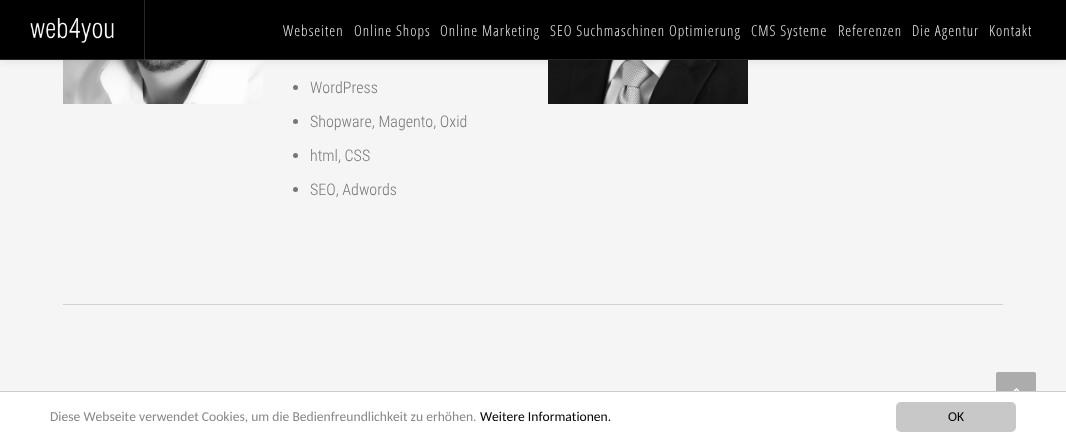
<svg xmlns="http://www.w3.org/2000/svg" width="1066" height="442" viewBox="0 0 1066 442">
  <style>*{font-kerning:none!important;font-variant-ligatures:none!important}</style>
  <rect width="100%" height="100%" fill="rgb(245,245,245)"/>
  <image x="63" y="60" width="200" height="44" href="pic2.png"/>
  <image x="548" y="60" width="200" height="44" href="pic3.png"/>
  <rect x="0" y="0" width="1066" height="60" fill="rgba(0,0,0,0.1)" filter="blur(5px)"/>
  <rect x="0" y="0" width="1066" height="59" fill="rgb(0,0,0)"/>
  <rect x="0" y="59" width="1066" height="1" fill="rgb(38,38,38)"/>
  <rect x="144" y="0" width="1" height="60" fill="rgba(255,255,255,0.15)"/>
  <image x="30" y="18" width="84" height="25" href="pic1.png"/>
  <g font-family="Open Sans" font-size="15" font-weight="300" letter-spacing="1" fill="rgb(238,238,238)">
    <text x="283" y="36">Webseiten</text>
    <text x="354" y="36">Online Shops</text>
    <text x="440" y="36">Online Marketing</text>
    <text x="550" y="36">SEO Suchmaschinen Optimierung</text>
    <text x="751" y="36">CMS Systeme</text>
    <text x="838" y="36">Referenzen</text>
    <text x="912" y="36">Die Agentur</text>
    <text x="989" y="36">Kontakt</text>
  </g>
  <circle cx="295.5" cy="87.5" r="2.5" fill="rgb(119,119,119)"/>
  <text x="310" y="93" font-family="Roboto Condensed" font-size="16" font-weight="300" fill="rgb(119,119,119)">WordPress</text>
  <circle cx="295.5" cy="121.5" r="2.5" fill="rgb(119,119,119)"/>
  <text x="310" y="127" font-family="Roboto Condensed" font-size="16" font-weight="300" fill="rgb(119,119,119)">Shopware, Magento, Oxid</text>
  <circle cx="295.5" cy="155.5" r="2.5" fill="rgb(119,119,119)"/>
  <text x="310" y="161" font-family="Roboto Condensed" font-size="16" font-weight="300" fill="rgb(119,119,119)">html, CSS</text>
  <circle cx="295.5" cy="189.5" r="2.5" fill="rgb(119,119,119)"/>
  <text x="310" y="195" font-family="Roboto Condensed" font-size="16" font-weight="300" fill="rgb(119,119,119)">SEO, Adwords</text>
  <rect x="63" y="304" width="940" height="1" fill="rgb(209,209,209)"/>
  <rect x="996" y="372" width="40" height="40" rx="2" fill="rgb(172,172,172)"/>
  <image x="1013" y="388" width="7" height="3" href="pic4.png"/>
  <rect x="0" y="392" width="1066" height="50" fill="rgb(255,255,255)"/>
  <rect x="0" y="391" width="1066" height="1" fill="rgb(204,204,204)"/>
  <text x="50" y="421" font-family="Carlito" font-size="13.6" fill="rgb(136,136,136)">Diese Webseite verwendet Cookies, um die Bedienfreundlichkeit zu erhöhen.</text>
  <text x="480" y="421" font-family="Carlito" font-size="13.6" fill="rgb(0,0,0)">Weitere Informationen.</text>
  <rect x="896" y="402" width="120" height="30" rx="5" fill="rgb(200,200,200)"/>
  <text x="948" y="421" font-family="Carlito" font-size="13.6" fill="rgb(0,0,0)">OK</text>
</svg>
